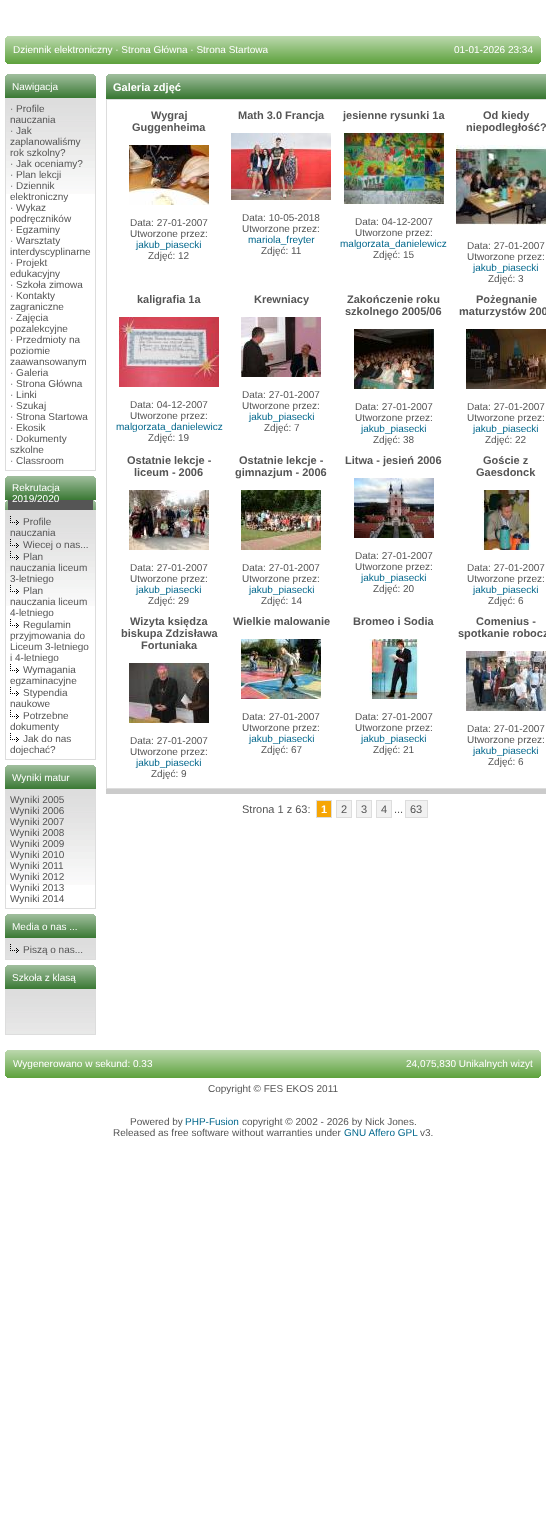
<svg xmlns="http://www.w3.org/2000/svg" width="546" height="1527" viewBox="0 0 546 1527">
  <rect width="100%" height="100%" fill="rgb(255,255,255)"/>
  <image x="5" y="36" width="3" height="28" href="pic1.png"/>
  <image x="8" y="36" width="397" height="28" href="pic2.png"/>
  <text x="13" y="53" font-family="Liberation Sans" font-size="10" fill="rgb(255,255,255)">Dziennik elektroniczny · Strona Główna · Strona Startowa</text>
  <image x="405" y="36" width="133" height="28" href="pic3.png"/>
  <text x="454" y="53" font-family="Liberation Sans" font-size="10" fill="rgb(255,255,255)">01-01-2026 23:34</text>
  <image x="538" y="36" width="3" height="28" href="pic4.png"/>
  <image x="5" y="74" width="3" height="24" href="pic5.png"/>
  <image x="8" y="74" width="85" height="24" href="pic6.png"/>
  <text x="12" y="90" font-family="Liberation Sans" font-size="10" fill="rgb(255,255,255)">Nawigacja</text>
  <image x="93" y="74" width="3" height="24" href="pic7.png"/>
  <image x="6" y="99" width="89" height="95" href="pic8.png"/>
  <rect x="5.5" y="98.5" width="90" height="372" fill="none" stroke="rgb(221,221,221)"/>
  <g font-family="Liberation Sans" font-size="10" fill="rgb(85,85,85)">
    <text>
      <tspan x="10" y="112">· Profile</tspan>
      <tspan x="10" y="123">nauczania</tspan>
      <tspan x="10" y="134">· Jak</tspan>
      <tspan x="10" y="145">zaplanowaliśmy</tspan>
      <tspan x="10" y="156">rok szkolny?</tspan>
      <tspan x="10" y="167">· Jak oceniamy?</tspan>
      <tspan x="10" y="178">· Plan lekcji</tspan>
      <tspan x="10" y="189">· Dziennik</tspan>
      <tspan x="10" y="200">elektroniczny</tspan>
      <tspan x="10" y="211">· Wykaz</tspan>
      <tspan x="10" y="222">podręczników</tspan>
      <tspan x="10" y="233">· Egzaminy</tspan>
      <tspan x="10" y="244">· Warsztaty</tspan>
      <tspan x="10" y="255">interdyscyplinarne</tspan>
      <tspan x="10" y="266">· Projekt</tspan>
      <tspan x="10" y="277">edukacyjny</tspan>
      <tspan x="10" y="288">· Szkoła zimowa</tspan>
      <tspan x="10" y="299">· Kontakty</tspan>
      <tspan x="10" y="310">zagraniczne</tspan>
      <tspan x="10" y="321">· Zajęcia</tspan>
      <tspan x="10" y="332">pozalekcyjne</tspan>
      <tspan x="10" y="343">· Przedmioty na</tspan>
      <tspan x="10" y="354">poziomie</tspan>
      <tspan x="10" y="365">zaawansowanym</tspan>
      <tspan x="10" y="376">· Galeria</tspan>
      <tspan x="10" y="387">· Strona Główna</tspan>
      <tspan x="10" y="398">· Linki</tspan>
      <tspan x="10" y="409">· Szukaj</tspan>
      <tspan x="10" y="420">· Strona Startowa</tspan>
      <tspan x="10" y="431">· Ekosik</tspan>
      <tspan x="10" y="442">· Dokumenty</tspan>
      <tspan x="10" y="453">szkolne</tspan>
      <tspan x="10" y="464">· Classroom</tspan>
    </text>
  </g>
  <image x="5" y="476" width="3" height="34" href="pic9.png"/>
  <rect x="8" y="500" width="85" height="10" fill="rgb(85,85,85)"/>
  <image x="8" y="476" width="85" height="24" href="pic6.png"/>
  <g font-family="Liberation Sans" font-size="10" fill="rgb(255,255,255)">
    <text>
      <tspan x="12" y="491">Rekrutacja</tspan>
      <tspan x="12" y="502">2019/2020</tspan>
    </text>
  </g>
  <image x="93" y="476" width="3" height="34" href="pic10.png"/>
  <image x="6" y="511" width="89" height="95" href="pic8.png"/>
  <rect x="5.5" y="510.5" width="90" height="249" fill="none" stroke="rgb(221,221,221)"/>
  <image x="10" y="516" width="9" height="9" href="pic11.png"/>
  <g font-family="Liberation Sans" font-size="10" fill="rgb(85,85,85)">
    <text x="23" y="525">Profile</text>
    <text x="10" y="536">nauczania</text>
  </g>
  <image x="10" y="539" width="9" height="9" href="pic12.png"/>
  <text x="23" y="548" font-family="Liberation Sans" font-size="10" fill="rgb(85,85,85)">Wiecej o nas...</text>
  <image x="10" y="551" width="9" height="9" href="pic13.png"/>
  <g font-family="Liberation Sans" font-size="10" fill="rgb(85,85,85)">
    <text x="23" y="560">Plan</text>
    <text>
      <tspan x="10" y="571">nauczania liceum</tspan>
      <tspan x="10" y="582">3-letniego</tspan>
    </text>
  </g>
  <image x="10" y="585" width="9" height="9" href="pic14.png"/>
  <g font-family="Liberation Sans" font-size="10" fill="rgb(85,85,85)">
    <text x="23" y="594">Plan</text>
    <text>
      <tspan x="10" y="605">nauczania liceum</tspan>
      <tspan x="10" y="616">4-letniego</tspan>
    </text>
  </g>
  <image x="10" y="619" width="9" height="9" href="pic15.png"/>
  <g font-family="Liberation Sans" font-size="10" fill="rgb(85,85,85)">
    <text x="23" y="628">Regulamin</text>
    <text>
      <tspan x="10" y="639">przyjmowania do</tspan>
      <tspan x="10" y="650">Liceum 3-letniego</tspan>
      <tspan x="10" y="661">i 4-letniego</tspan>
    </text>
  </g>
  <image x="10" y="664" width="9" height="9" href="pic15.png"/>
  <g font-family="Liberation Sans" font-size="10" fill="rgb(85,85,85)">
    <text x="23" y="673">Wymagania</text>
    <text x="10" y="684">egzaminacyjne</text>
  </g>
  <image x="10" y="687" width="9" height="9" href="pic15.png"/>
  <g font-family="Liberation Sans" font-size="10" fill="rgb(85,85,85)">
    <text x="23" y="696">Stypendia</text>
    <text x="10" y="707">naukowe</text>
  </g>
  <image x="10" y="710" width="9" height="9" href="pic15.png"/>
  <g font-family="Liberation Sans" font-size="10" fill="rgb(85,85,85)">
    <text x="23" y="719">Potrzebne</text>
    <text x="10" y="730">dokumenty</text>
  </g>
  <image x="10" y="733" width="9" height="9" href="pic15.png"/>
  <g font-family="Liberation Sans" font-size="10" fill="rgb(85,85,85)">
    <text x="23" y="742">Jak do nas</text>
    <text x="10" y="753">dojechać?</text>
  </g>
  <image x="5" y="765" width="3" height="24" href="pic5.png"/>
  <image x="8" y="765" width="85" height="24" href="pic6.png"/>
  <text x="12" y="781" font-family="Liberation Sans" font-size="10" fill="rgb(255,255,255)">Wyniki matur</text>
  <image x="93" y="765" width="3" height="24" href="pic7.png"/>
  <image x="6" y="790" width="89" height="95" href="pic8.png"/>
  <rect x="5.5" y="789.5" width="90" height="119" fill="none" stroke="rgb(221,221,221)"/>
  <g font-family="Liberation Sans" font-size="10" fill="rgb(85,85,85)">
    <text>
      <tspan x="10" y="803">Wyniki 2005</tspan>
      <tspan x="10" y="814">Wyniki 2006</tspan>
      <tspan x="10" y="825">Wyniki 2007</tspan>
      <tspan x="10" y="836">Wyniki 2008</tspan>
      <tspan x="10" y="847">Wyniki 2009</tspan>
      <tspan x="10" y="858">Wyniki 2010</tspan>
      <tspan x="10" y="869">Wyniki 2011</tspan>
      <tspan x="10" y="880">Wyniki 2012</tspan>
      <tspan x="10" y="891">Wyniki 2013</tspan>
      <tspan x="10" y="902">Wyniki 2014</tspan>
    </text>
  </g>
  <image x="5" y="914" width="3" height="24" href="pic5.png"/>
  <image x="8" y="914" width="85" height="24" href="pic6.png"/>
  <text x="12" y="930" font-family="Liberation Sans" font-size="10" fill="rgb(255,255,255)">Media o nas ...</text>
  <image x="93" y="914" width="3" height="24" href="pic7.png"/>
  <image x="6" y="939" width="89" height="20" href="pic16.png"/>
  <rect x="5.5" y="938.5" width="90" height="21" fill="none" stroke="rgb(221,221,221)"/>
  <image x="10" y="944" width="9" height="9" href="pic11.png"/>
  <text x="23" y="953" font-family="Liberation Sans" font-size="10" fill="rgb(85,85,85)">Piszą o nas...</text>
  <image x="5" y="965" width="3" height="24" href="pic5.png"/>
  <image x="8" y="965" width="85" height="24" href="pic6.png"/>
  <text x="12" y="981" font-family="Liberation Sans" font-size="10" fill="rgb(255,255,255)">Szkoła z klasą</text>
  <image x="93" y="965" width="3" height="24" href="pic7.png"/>
  <image x="6" y="990" width="89" height="44" href="pic17.png"/>
  <rect x="5.5" y="989.5" width="90" height="45" fill="none" stroke="rgb(221,221,221)"/>
  <image x="106" y="74" width="3" height="25" href="pic18.png"/>
  <image x="109" y="74" width="437" height="25" href="pic19.png"/>
  <text x="113" y="91" font-family="Liberation Sans" font-size="11" font-weight="bold" fill="rgb(255,255,255)">Galeria zdjęć</text>
  <rect x="106.5" y="99.5" width="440" height="689" fill="none" stroke="rgb(221,221,221)"/>
  <g font-family="Liberation Sans" font-size="11" font-weight="bold" fill="rgb(85,85,85)">
    <text x="151" y="119">Wygraj</text>
    <text x="132" y="131">Guggenheima</text>
  </g>
  <image x="129" y="145" width="80" height="60" href="pic20.png"/>
  <g font-family="Liberation Sans" font-size="10" fill="rgb(85,85,85)">
    <text>
      <tspan x="130" y="226">Data: 27-01-2007</tspan>
      <tspan x="130" y="237">Utworzone przez:</tspan>
    </text>
  </g>
  <text x="136" y="248" font-family="Liberation Sans" font-size="10" fill="rgb(4,104,141)">jakub_piasecki</text>
  <text x="148" y="259" font-family="Liberation Sans" font-size="10" fill="rgb(85,85,85)">Zdjęć: 12</text>
  <text x="238" y="119" font-family="Liberation Sans" font-size="11" font-weight="bold" fill="rgb(85,85,85)">Math 3.0 Francja</text>
  <image x="231" y="133" width="100" height="67" href="pic21.png"/>
  <g font-family="Liberation Sans" font-size="10" fill="rgb(85,85,85)">
    <text>
      <tspan x="242" y="221">Data: 10-05-2018</tspan>
      <tspan x="242" y="232">Utworzone przez:</tspan>
    </text>
  </g>
  <text x="248" y="243" font-family="Liberation Sans" font-size="10" fill="rgb(4,104,141)">mariola_freyter</text>
  <text x="261" y="254" font-family="Liberation Sans" font-size="10" fill="rgb(85,85,85)">Zdjęć: 11</text>
  <text x="343" y="119" font-family="Liberation Sans" font-size="11" font-weight="bold" fill="rgb(85,85,85)">jesienne rysunki 1a</text>
  <image x="344" y="133" width="100" height="71" href="pic22.png"/>
  <g font-family="Liberation Sans" font-size="10" fill="rgb(85,85,85)">
    <text>
      <tspan x="355" y="225">Data: 04-12-2007</tspan>
      <tspan x="355" y="236">Utworzone przez:</tspan>
    </text>
  </g>
  <text x="340" y="247" font-family="Liberation Sans" font-size="10" fill="rgb(4,104,141)">malgorzata_danielewicz</text>
  <text x="373" y="258" font-family="Liberation Sans" font-size="10" fill="rgb(85,85,85)">Zdjęć: 15</text>
  <g font-family="Liberation Sans" font-size="11" font-weight="bold" fill="rgb(85,85,85)">
    <text x="483" y="119">Od kiedy</text>
    <text x="466" y="131">niepodległość?</text>
  </g>
  <image x="456" y="145" width="90" height="80" href="pic23.png"/>
  <g font-family="Liberation Sans" font-size="10" fill="rgb(85,85,85)">
    <text>
      <tspan x="467" y="249">Data: 27-01-2007</tspan>
      <tspan x="467" y="260">Utworzone przez:</tspan>
    </text>
  </g>
  <text x="473" y="271" font-family="Liberation Sans" font-size="10" fill="rgb(4,104,141)">jakub_piasecki</text>
  <text x="488" y="282" font-family="Liberation Sans" font-size="10" fill="rgb(85,85,85)">Zdjęć: 3</text>
  <text x="137" y="303" font-family="Liberation Sans" font-size="11" font-weight="bold" fill="rgb(85,85,85)">kaligrafia 1a</text>
  <image x="119" y="317" width="100" height="70" href="pic24.png"/>
  <g font-family="Liberation Sans" font-size="10" fill="rgb(85,85,85)">
    <text>
      <tspan x="130" y="408">Data: 04-12-2007</tspan>
      <tspan x="130" y="419">Utworzone przez:</tspan>
    </text>
  </g>
  <text x="116" y="430" font-family="Liberation Sans" font-size="10" fill="rgb(4,104,141)">malgorzata_danielewicz</text>
  <text x="148" y="441" font-family="Liberation Sans" font-size="10" fill="rgb(85,85,85)">Zdjęć: 19</text>
  <text x="254" y="303" font-family="Liberation Sans" font-size="11" font-weight="bold" fill="rgb(85,85,85)">Krewniacy</text>
  <image x="241" y="317" width="80" height="60" href="pic25.png"/>
  <g font-family="Liberation Sans" font-size="10" fill="rgb(85,85,85)">
    <text>
      <tspan x="242" y="398">Data: 27-01-2007</tspan>
      <tspan x="242" y="409">Utworzone przez:</tspan>
    </text>
  </g>
  <text x="249" y="420" font-family="Liberation Sans" font-size="10" fill="rgb(4,104,141)">jakub_piasecki</text>
  <text x="264" y="431" font-family="Liberation Sans" font-size="10" fill="rgb(85,85,85)">Zdjęć: 7</text>
  <g font-family="Liberation Sans" font-size="11" font-weight="bold" fill="rgb(85,85,85)">
    <text x="347" y="303">Zakończenie roku</text>
    <text x="345" y="315">szkolnego 2005/06</text>
  </g>
  <image x="354" y="329" width="80" height="60" href="pic26.png"/>
  <g font-family="Liberation Sans" font-size="10" fill="rgb(85,85,85)">
    <text>
      <tspan x="355" y="410">Data: 27-01-2007</tspan>
      <tspan x="355" y="421">Utworzone przez:</tspan>
    </text>
  </g>
  <text x="361" y="432" font-family="Liberation Sans" font-size="10" fill="rgb(4,104,141)">jakub_piasecki</text>
  <text x="373" y="443" font-family="Liberation Sans" font-size="10" fill="rgb(85,85,85)">Zdjęć: 38</text>
  <g font-family="Liberation Sans" font-size="11" font-weight="bold" fill="rgb(85,85,85)">
    <text x="476" y="303">Pożegnanie</text>
    <text x="459" y="315">maturzystów 200</text>
  </g>
  <image x="466" y="329" width="80" height="60" href="pic27.png"/>
  <g font-family="Liberation Sans" font-size="10" fill="rgb(85,85,85)">
    <text>
      <tspan x="467" y="410">Data: 27-01-2007</tspan>
      <tspan x="467" y="421">Utworzone przez:</tspan>
    </text>
  </g>
  <text x="473" y="432" font-family="Liberation Sans" font-size="10" fill="rgb(4,104,141)">jakub_piasecki</text>
  <text x="485" y="443" font-family="Liberation Sans" font-size="10" fill="rgb(85,85,85)">Zdjęć: 22</text>
  <g font-family="Liberation Sans" font-size="11" font-weight="bold" fill="rgb(85,85,85)">
    <text x="127" y="464">Ostatnie lekcje -</text>
    <text x="134" y="476">liceum - 2006</text>
  </g>
  <image x="129" y="490" width="80" height="60" href="pic28.png"/>
  <g font-family="Liberation Sans" font-size="10" fill="rgb(85,85,85)">
    <text>
      <tspan x="130" y="571">Data: 27-01-2007</tspan>
      <tspan x="130" y="582">Utworzone przez:</tspan>
    </text>
  </g>
  <text x="136" y="593" font-family="Liberation Sans" font-size="10" fill="rgb(4,104,141)">jakub_piasecki</text>
  <text x="148" y="604" font-family="Liberation Sans" font-size="10" fill="rgb(85,85,85)">Zdjęć: 29</text>
  <g font-family="Liberation Sans" font-size="11" font-weight="bold" fill="rgb(85,85,85)">
    <text x="239" y="464">Ostatnie lekcje -</text>
    <text x="235" y="476">gimnazjum - 2006</text>
  </g>
  <image x="241" y="490" width="80" height="60" href="pic29.png"/>
  <g font-family="Liberation Sans" font-size="10" fill="rgb(85,85,85)">
    <text>
      <tspan x="242" y="571">Data: 27-01-2007</tspan>
      <tspan x="242" y="582">Utworzone przez:</tspan>
    </text>
  </g>
  <text x="249" y="593" font-family="Liberation Sans" font-size="10" fill="rgb(4,104,141)">jakub_piasecki</text>
  <text x="261" y="604" font-family="Liberation Sans" font-size="10" fill="rgb(85,85,85)">Zdjęć: 14</text>
  <text x="345" y="464" font-family="Liberation Sans" font-size="11" font-weight="bold" fill="rgb(85,85,85)">Litwa - jesień 2006</text>
  <image x="354" y="478" width="80" height="60" href="pic30.png"/>
  <g font-family="Liberation Sans" font-size="10" fill="rgb(85,85,85)">
    <text>
      <tspan x="355" y="559">Data: 27-01-2007</tspan>
      <tspan x="355" y="570">Utworzone przez:</tspan>
    </text>
  </g>
  <text x="361" y="581" font-family="Liberation Sans" font-size="10" fill="rgb(4,104,141)">jakub_piasecki</text>
  <text x="373" y="592" font-family="Liberation Sans" font-size="10" fill="rgb(85,85,85)">Zdjęć: 20</text>
  <g font-family="Liberation Sans" font-size="11" font-weight="bold" fill="rgb(85,85,85)">
    <text x="483" y="464">Goście z</text>
    <text x="476" y="476">Gaesdonck</text>
  </g>
  <image x="482" y="490" width="49" height="60" href="pic31.png"/>
  <g font-family="Liberation Sans" font-size="10" fill="rgb(85,85,85)">
    <text>
      <tspan x="467" y="571">Data: 27-01-2007</tspan>
      <tspan x="467" y="582">Utworzone przez:</tspan>
    </text>
  </g>
  <text x="473" y="593" font-family="Liberation Sans" font-size="10" fill="rgb(4,104,141)">jakub_piasecki</text>
  <text x="488" y="604" font-family="Liberation Sans" font-size="10" fill="rgb(85,85,85)">Zdjęć: 6</text>
  <g font-family="Liberation Sans" font-size="11" font-weight="bold" fill="rgb(85,85,85)">
    <text x="130" y="625">Wizyta księdza</text>
    <text x="121" y="637">biskupa Zdzisława</text>
    <text x="141" y="649">Fortuniaka</text>
  </g>
  <image x="129" y="663" width="80" height="60" href="pic32.png"/>
  <g font-family="Liberation Sans" font-size="10" fill="rgb(85,85,85)">
    <text>
      <tspan x="130" y="744">Data: 27-01-2007</tspan>
      <tspan x="130" y="755">Utworzone przez:</tspan>
    </text>
  </g>
  <text x="136" y="766" font-family="Liberation Sans" font-size="10" fill="rgb(4,104,141)">jakub_piasecki</text>
  <text x="151" y="777" font-family="Liberation Sans" font-size="10" fill="rgb(85,85,85)">Zdjęć: 9</text>
  <text x="233" y="625" font-family="Liberation Sans" font-size="11" font-weight="bold" fill="rgb(85,85,85)">Wielkie malowanie</text>
  <image x="241" y="639" width="80" height="60" href="pic33.png"/>
  <g font-family="Liberation Sans" font-size="10" fill="rgb(85,85,85)">
    <text>
      <tspan x="242" y="720">Data: 27-01-2007</tspan>
      <tspan x="242" y="731">Utworzone przez:</tspan>
    </text>
  </g>
  <text x="249" y="742" font-family="Liberation Sans" font-size="10" fill="rgb(4,104,141)">jakub_piasecki</text>
  <text x="261" y="753" font-family="Liberation Sans" font-size="10" fill="rgb(85,85,85)">Zdjęć: 67</text>
  <text x="353" y="625" font-family="Liberation Sans" font-size="11" font-weight="bold" fill="rgb(85,85,85)">Bromeo i Sodia</text>
  <image x="369" y="639" width="50" height="60" href="pic34.png"/>
  <g font-family="Liberation Sans" font-size="10" fill="rgb(85,85,85)">
    <text>
      <tspan x="355" y="720">Data: 27-01-2007</tspan>
      <tspan x="355" y="731">Utworzone przez:</tspan>
    </text>
  </g>
  <text x="361" y="742" font-family="Liberation Sans" font-size="10" fill="rgb(4,104,141)">jakub_piasecki</text>
  <text x="373" y="753" font-family="Liberation Sans" font-size="10" fill="rgb(85,85,85)">Zdjęć: 21</text>
  <g font-family="Liberation Sans" font-size="11" font-weight="bold" fill="rgb(85,85,85)">
    <text x="476" y="625">Comenius -</text>
    <text x="458" y="637">spotkanie robocz</text>
  </g>
  <image x="466" y="651" width="80" height="60" href="pic35.png"/>
  <g font-family="Liberation Sans" font-size="10" fill="rgb(85,85,85)">
    <text>
      <tspan x="467" y="732">Data: 27-01-2007</tspan>
      <tspan x="467" y="743">Utworzone przez:</tspan>
    </text>
  </g>
  <text x="473" y="754" font-family="Liberation Sans" font-size="10" fill="rgb(4,104,141)">jakub_piasecki</text>
  <text x="488" y="765" font-family="Liberation Sans" font-size="10" fill="rgb(85,85,85)">Zdjęć: 6</text>
  <rect x="106" y="789" width="440" height="5" fill="rgb(203,203,203)"/>
  <text x="242" y="813" font-family="Liberation Sans" font-size="11" fill="rgb(85,85,85)">Strona 1 z 63:</text>
  <rect x="316.5" y="800.5" width="15" height="17" fill="rgb(246,165,4)" stroke="rgb(221,221,221)"/>
  <text x="321" y="813" font-family="Liberation Sans" font-size="11" font-weight="bold" fill="rgb(255,255,255)">1</text>
  <rect x="336.5" y="800.5" width="15" height="17" fill="rgb(241,241,241)" stroke="rgb(221,221,221)"/>
  <text x="341" y="813" font-family="Liberation Sans" font-size="11" fill="rgb(85,85,85)">2</text>
  <rect x="356.5" y="800.5" width="15" height="17" fill="rgb(241,241,241)" stroke="rgb(221,221,221)"/>
  <text x="361" y="813" font-family="Liberation Sans" font-size="11" fill="rgb(85,85,85)">3</text>
  <rect x="376.5" y="800.5" width="15" height="17" fill="rgb(241,241,241)" stroke="rgb(221,221,221)"/>
  <g font-family="Liberation Sans" font-size="11" fill="rgb(85,85,85)">
    <text x="381" y="813">4</text>
    <text x="394" y="813">...</text>
  </g>
  <rect x="405.5" y="800.5" width="22" height="17" fill="rgb(241,241,241)" stroke="rgb(221,221,221)"/>
  <text x="410" y="813" font-family="Liberation Sans" font-size="11" fill="rgb(85,85,85)">63</text>
  <image x="5" y="1050" width="3" height="28" href="pic1.png"/>
  <image x="8" y="1050" width="277" height="28" href="pic36.png"/>
  <text x="13" y="1067" font-family="Liberation Sans" font-size="10" fill="rgb(255,255,255)">Wygenerowano w sekund: 0.33</text>
  <image x="285" y="1050" width="253" height="28" href="pic37.png"/>
  <text x="406" y="1067" font-family="Liberation Sans" font-size="10" fill="rgb(255,255,255)">24,075,830 Unikalnych wizyt</text>
  <image x="538" y="1050" width="3" height="28" href="pic4.png"/>
  <g font-family="Liberation Sans" font-size="10" fill="rgb(85,85,85)">
    <text x="208" y="1092">Copyright © FES EKOS 2011</text>
    <text x="130" y="1125">Powered by</text>
  </g>
  <text x="185" y="1125" font-family="Liberation Sans" font-size="10" fill="rgb(4,104,141)">PHP-Fusion</text>
  <g font-family="Liberation Sans" font-size="10" fill="rgb(85,85,85)">
    <text x="242" y="1125">copyright © 2002 - 2026 by Nick Jones.</text>
    <text x="113" y="1136">Released as free software without warranties under</text>
  </g>
  <text x="344" y="1136" font-family="Liberation Sans" font-size="10" fill="rgb(4,104,141)">GNU Affero GPL</text>
  <text x="420" y="1136" font-family="Liberation Sans" font-size="10" fill="rgb(85,85,85)">v3.</text>
</svg>
